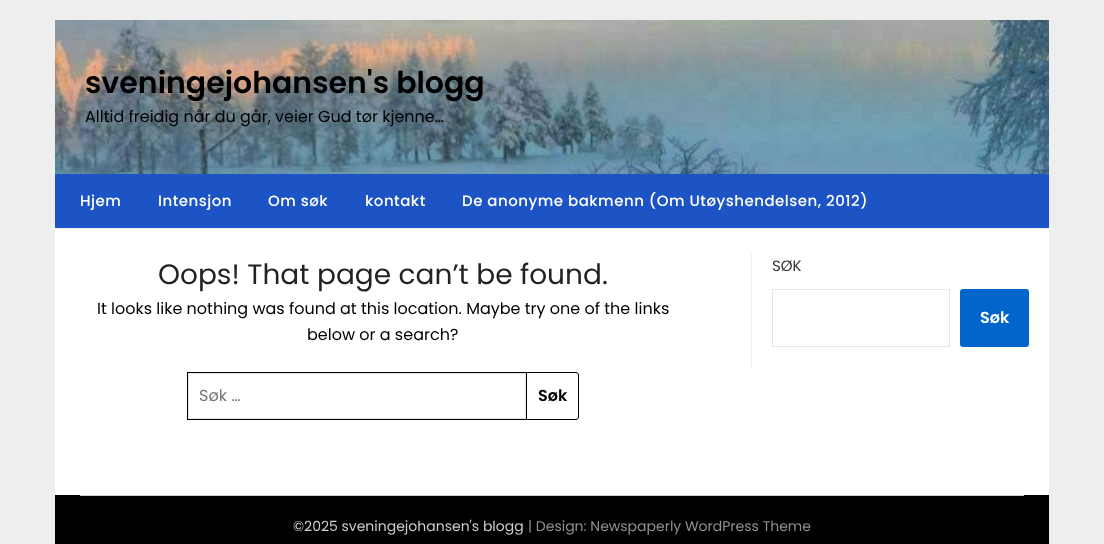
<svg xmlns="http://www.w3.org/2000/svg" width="1104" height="544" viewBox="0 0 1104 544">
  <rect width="100%" height="100%" fill="rgb(238,238,238)"/>
  <image x="55" y="20" width="994" height="154" href="pic1.png"/>
  <text x="85" y="93" font-family="Poppins" font-size="30" font-weight="600" fill="rgb(0,0,0)">sveningejohansen's blogg</text>
  <text x="85" y="122" font-family="Poppins" font-size="16" fill="rgb(0,0,0)">Alltid freidig når du går, veier Gud tør kjenne…</text>
  <rect x="55" y="174" width="994" height="54" fill="rgb(28,83,197)"/>
  <g font-family="Poppins" font-size="15" font-weight="500" letter-spacing="0.5" fill="rgb(255,255,255)">
    <text x="80" y="206">Hjem</text>
    <text x="158" y="206">Intensjon</text>
    <text x="268" y="206">Om søk</text>
    <text x="365" y="206">kontakt</text>
    <text x="462" y="206">De anonyme bakmenn (Om Utøyshendelsen, 2012)</text>
  </g>
  <rect x="55" y="229" width="994" height="266" fill="rgb(255,255,255)"/>
  <text x="158" y="284" font-family="Poppins" font-size="28" fill="rgb(34,34,34)">Oops! That page can’t be found.</text>
  <g font-family="Poppins" font-size="16" fill="rgb(0,0,0)">
    <text x="97" y="314">It looks like nothing was found at this location. Maybe try one of the links</text>
    <text x="307" y="340">below or a search?</text>
  </g>
  <rect x="187" y="372" width="339" height="1" fill="rgb(0,0,0)"/>
  <rect x="187" y="419" width="339" height="1" fill="rgb(0,0,0)"/>
  <rect x="187" y="372" width="1" height="48" fill="rgb(0,0,0)"/>
  <rect x="188.5" y="373.5" width="337" height="45" fill="none" stroke="rgb(229,230,233)"/>
  <text x="199" y="401" font-family="Poppins" font-size="16" fill="rgb(117,117,117)">Søk …</text>
  <path d="M526.5 372.5H576C577.5 372.5 578.5 373.5 578.5 375V417C578.5 418.5 577.5 419.5 576 419.5H526.5Z" fill="none" stroke="rgb(0,0,0)"/>
  <text x="538" y="401" font-family="Poppins" font-size="16" font-weight="600" fill="rgb(0,0,0)">Søk</text>
  <rect x="751" y="254" width="1" height="113" fill="rgb(236,236,236)"/>
  <text x="772" y="271" font-family="Poppins" font-size="15" fill="rgb(51,51,51)">SØK</text>
  <rect x="772.5" y="289.5" width="177" height="57" fill="none" stroke="rgb(229,230,233)"/>
  <rect x="960" y="289" width="69" height="58" rx="3" fill="rgb(0,102,204)"/>
  <text x="980" y="323" font-family="Poppins" font-size="16" font-weight="600" fill="rgb(255,255,255)">Søk</text>
  <rect x="55" y="495" width="994" height="49" fill="rgb(0,0,0)"/>
  <rect x="80" y="495" width="944" height="1" fill="rgb(204,204,204)"/>
  <text x="293" y="531" font-family="Poppins" font-size="14" fill="rgb(204,204,204)">©2025 sveningejohansen's blogg</text>
  <text x="528" y="531" font-family="Poppins" font-size="14" fill="rgb(143,143,143)">| Design: Newspaperly WordPress Theme</text>
</svg>
